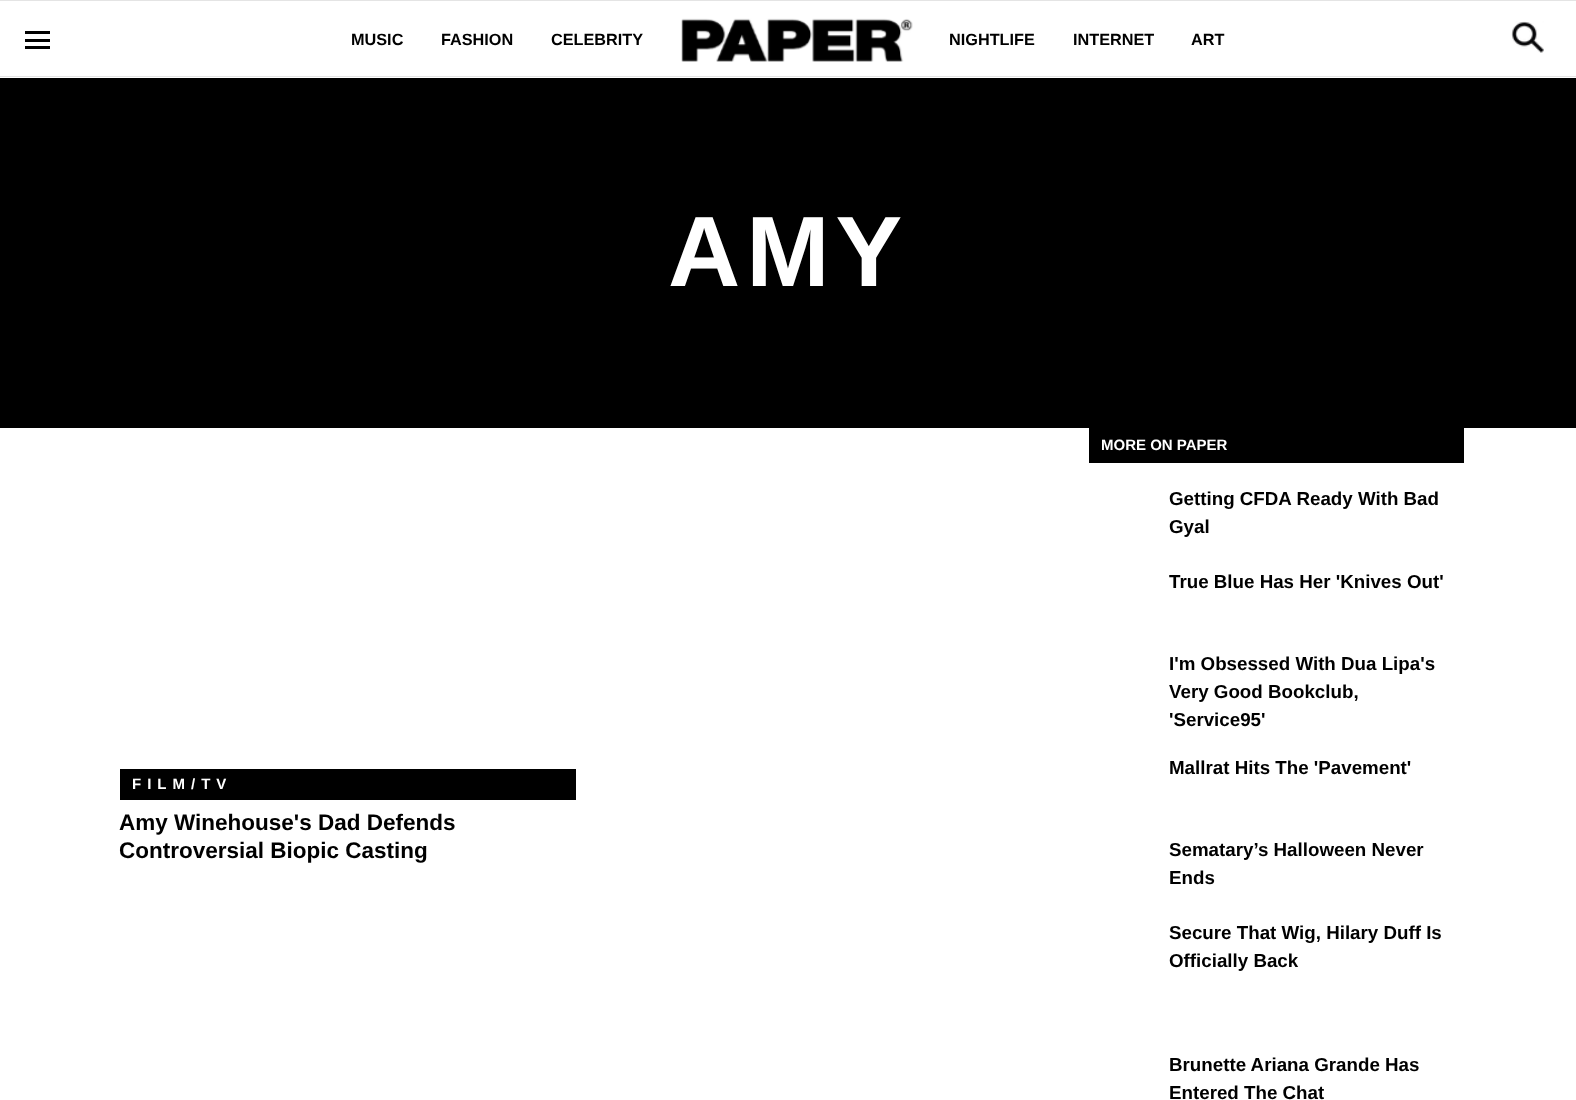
<svg xmlns="http://www.w3.org/2000/svg" width="1576" height="1100" viewBox="0 0 1576 1100">
  <rect width="100%" height="100%" fill="rgb(255,255,255)"/>
  <rect x="0" y="0" width="1576" height="1" fill="rgb(228,228,228)"/>
  <rect x="0" y="76" width="1576" height="1" fill="rgb(228,228,228)"/>
  <rect x="25" y="39" width="25" height="3" fill="rgb(0,0,0)"/>
  <rect x="25" y="31" width="25" height="3" fill="rgb(0,0,0)"/>
  <rect x="25" y="46" width="25" height="3" fill="rgb(0,0,0)"/>
  <g font-family="Liberation Sans" font-size="16.25" font-weight="bold" fill="rgb(0,0,0)">
    <text x="351" y="45">MUSIC</text>
    <text x="441" y="45">FASHION</text>
    <text x="551" y="45">CELEBRITY</text>
  </g>
  <image x="681" y="18" width="232" height="44" href="pic1.png"/>
  <g font-family="Liberation Sans" font-size="16.25" font-weight="bold" fill="rgb(0,0,0)">
    <text x="949" y="45">NIGHTLIFE</text>
    <text x="1073" y="45">INTERNET</text>
    <text x="1191" y="45">ART</text>
  </g>
  <image x="1511" y="21" width="33" height="32" href="pic2.png"/>
  <rect x="0" y="78" width="1576" height="350" fill="rgb(0,0,0)"/>
  <text x="668" y="286" font-family="Liberation Sans" font-size="100" font-weight="bold" letter-spacing="6" fill="rgb(255,255,255)">AMY</text>
  <rect x="120" y="769" width="456" height="31" fill="rgb(0,0,0)"/>
  <text x="132" y="789" font-family="Liberation Sans" font-size="15" font-weight="bold" letter-spacing="6" fill="rgb(255,255,255)">FILM/TV</text>
  <g font-family="Liberation Sans" font-size="22.5" font-weight="bold" fill="rgb(0,0,0)">
    <text>
      <tspan x="119" y="830">Amy Winehouse's Dad Defends</tspan>
      <tspan x="119" y="858">Controversial Biopic Casting</tspan>
    </text>
  </g>
  <rect x="1089" y="428" width="375" height="35" fill="rgb(0,0,0)"/>
  <text x="1101" y="450" font-family="Liberation Sans" font-size="15" font-weight="bold" fill="rgb(255,255,255)">MORE ON PAPER</text>
  <g font-family="Liberation Sans" font-size="18.75" font-weight="bold" fill="rgb(0,0,0)">
    <text>
      <tspan x="1169" y="505">Getting CFDA Ready With Bad</tspan>
      <tspan x="1169" y="533">Gyal</tspan>
    </text>
    <text x="1169" y="588">True Blue Has Her 'Knives Out'</text>
    <text>
      <tspan x="1169" y="670">I'm Obsessed With Dua Lipa's</tspan>
      <tspan x="1169" y="698">Very Good Bookclub,</tspan>
      <tspan x="1169" y="726">'Service95'</tspan>
    </text>
    <text x="1169" y="774">Mallrat Hits The 'Pavement'</text>
    <text>
      <tspan x="1169" y="856">Sematary’s Halloween Never</tspan>
      <tspan x="1169" y="884">Ends</tspan>
    </text>
    <text>
      <tspan x="1169" y="939">Secure That Wig, Hilary Duff Is</tspan>
      <tspan x="1169" y="967">Officially Back</tspan>
    </text>
    <text>
      <tspan x="1169" y="1071">Brunette Ariana Grande Has</tspan>
      <tspan x="1169" y="1099">Entered The Chat</tspan>
    </text>
  </g>
</svg>
